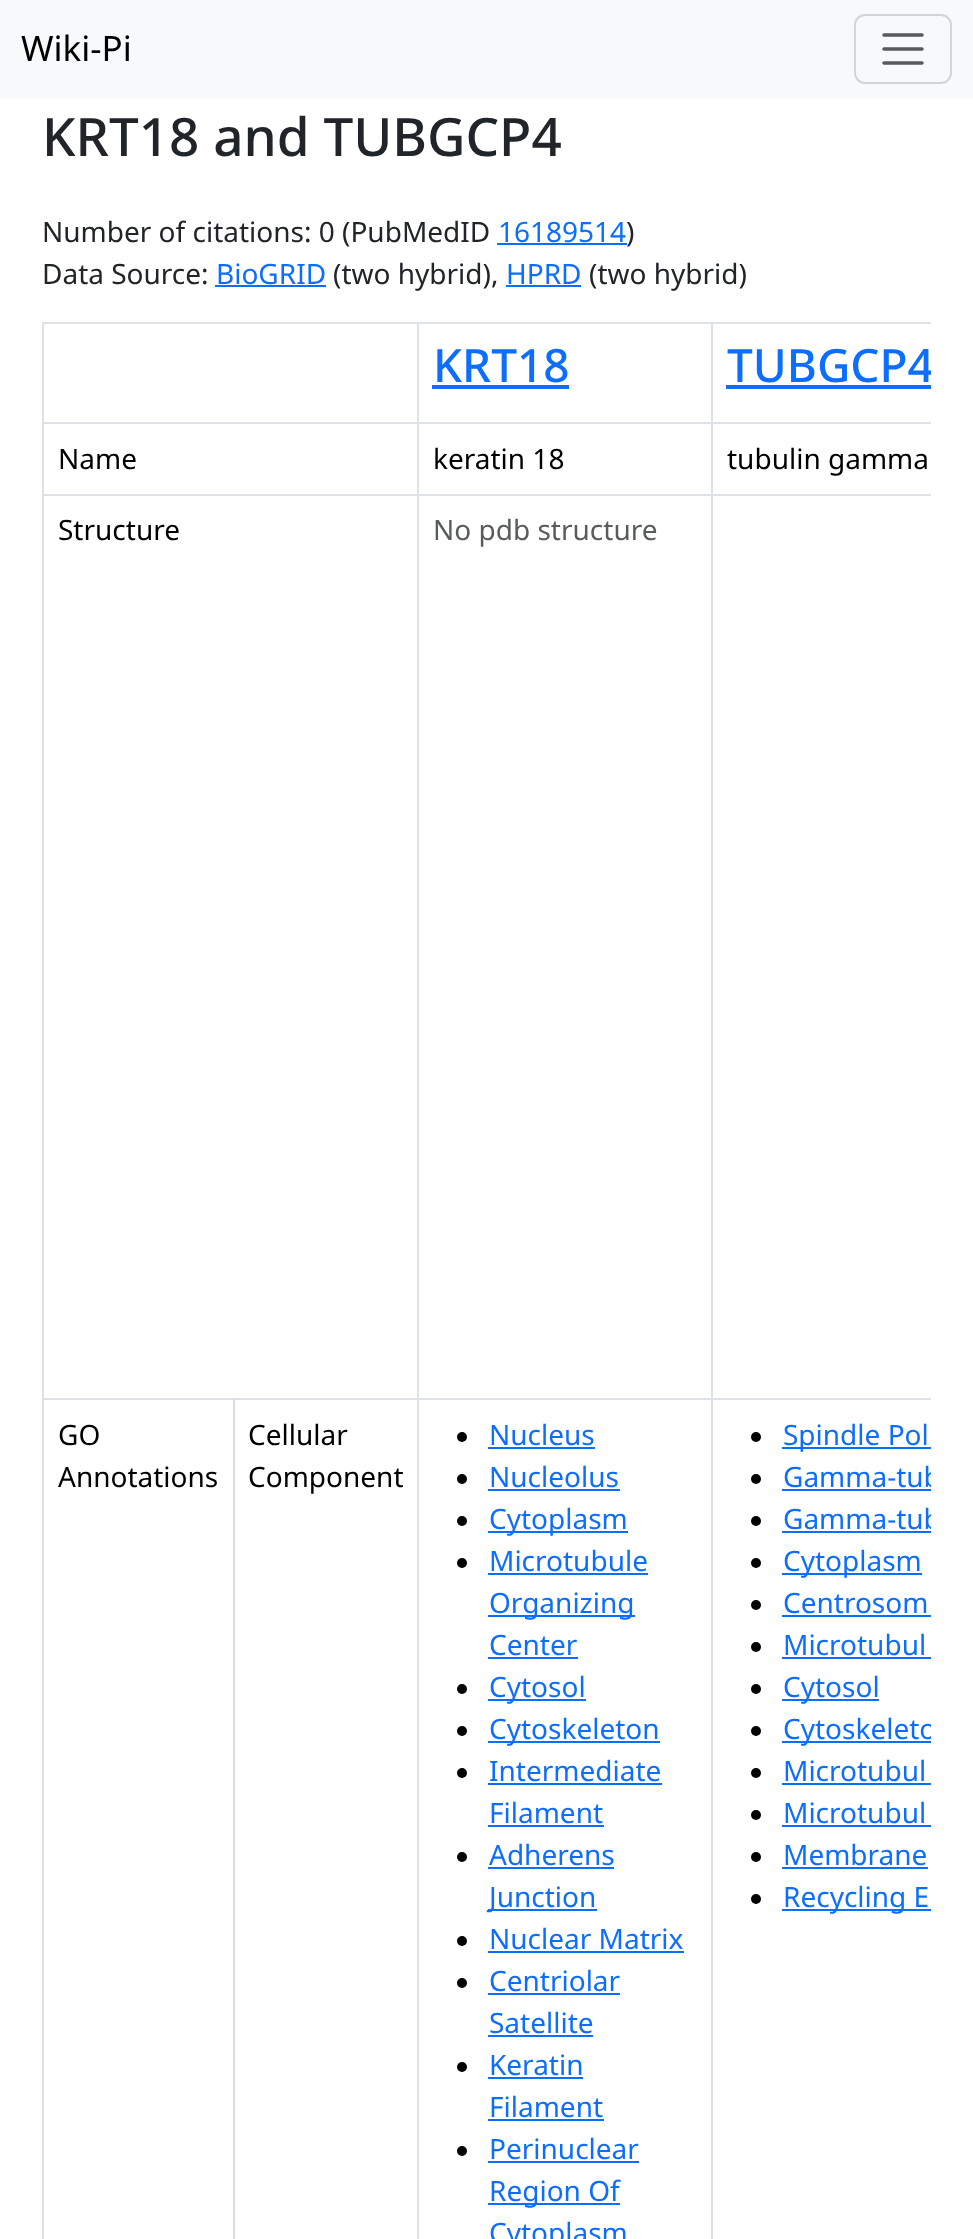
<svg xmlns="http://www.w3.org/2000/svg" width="973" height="2239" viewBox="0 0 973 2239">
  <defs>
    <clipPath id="clip1"><rect x="42" y="322" width="889" height="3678"/></clipPath>
  </defs>
  <rect width="100%" height="100%" fill="rgb(255,255,255)"/>
  <rect x="0" y="0" width="973" height="98" fill="rgb(248,249,250)"/>
  <text x="21" y="61" font-family="Noto Sans" font-size="35" fill="rgb(0,0,0)">Wiki-Pi</text>
  <rect x="855" y="15" width="96" height="68" rx="10" fill="none" stroke="rgb(211,212,213)" stroke-width="2"/>
  <path d="M884 35H922M884 49H922M884 63H922" fill="none" stroke="rgb(87,90,93)" stroke-width="3.5" stroke-linecap="round"/>
  <text x="42" y="156" font-family="Noto Sans" font-size="53" font-weight="500" fill="rgb(33,37,41)">KRT18 and TUBGCP4</text>
  <text x="42" y="242" font-family="Noto Sans" font-size="28" fill="rgb(33,37,41)">Number of citations: 0 (PubMedID</text>
  <text x="498" y="242" font-family="Noto Sans" font-size="28" fill="rgb(13,110,253)">16189514</text>
  <rect x="497" y="243" width="130" height="2" fill="rgb(13,110,253)"/>
  <g font-family="Noto Sans" font-size="28" fill="rgb(33,37,41)">
    <text x="626" y="242">)</text>
    <text x="42" y="284">Data Source:</text>
  </g>
  <text x="216" y="284" font-family="Noto Sans" font-size="28" fill="rgb(13,110,253)">BioGRID</text>
  <rect x="215" y="285" width="111" height="2" fill="rgb(13,110,253)"/>
  <text x="333" y="284" font-family="Noto Sans" font-size="28" fill="rgb(33,37,41)">(two hybrid),</text>
  <text x="506" y="284" font-family="Noto Sans" font-size="28" fill="rgb(13,110,253)">HPRD</text>
  <rect x="506" y="285" width="75" height="2" fill="rgb(13,110,253)"/>
  <text x="589" y="284" font-family="Noto Sans" font-size="28" fill="rgb(33,37,41)">(two hybrid)</text>
  <rect x="42" y="322" width="889" height="2" fill="rgb(222,226,230)"/>
  <text x="433" y="382" font-family="Noto Sans" font-size="46" font-weight="500" fill="rgb(13,110,253)">KRT18</text>
  <rect x="432" y="385" width="137" height="4" fill="rgb(13,110,253)"/>
  <g clip-path="url(#clip1)">
    <text x="727" y="382" font-family="Noto Sans" font-size="46" font-weight="500" fill="rgb(13,110,253)">TUBGCP4</text>
  </g>
  <rect x="726" y="385" width="205" height="4" fill="rgb(13,110,253)"/>
  <rect x="42" y="422" width="889" height="2" fill="rgb(222,226,230)"/>
  <g font-family="Noto Sans" font-size="28" fill="rgb(0,0,0)">
    <text x="58" y="469">Name</text>
    <text x="433" y="469">keratin 18</text>
    <text x="727" y="469">tubulin gamma</text>
  </g>
  <rect x="42" y="494" width="889" height="2" fill="rgb(222,226,230)"/>
  <text x="58" y="540" font-family="Noto Sans" font-size="28" fill="rgb(0,0,0)">Structure</text>
  <text x="433" y="540" font-family="Noto Sans" font-size="28" fill="rgb(89,92,95)">No pdb structure</text>
  <rect x="42" y="1398" width="889" height="2" fill="rgb(222,226,230)"/>
  <rect x="233" y="1398" width="2" height="841" fill="rgb(221,221,221)"/>
  <rect x="42" y="322" width="2" height="1917" fill="rgb(222,226,230)"/>
  <g font-family="Noto Sans" font-size="28" fill="rgb(0,0,0)">
    <text>
      <tspan x="58" y="1445">GO</tspan>
      <tspan x="58" y="1487">Annotations</tspan>
    </text>
    <text>
      <tspan x="248" y="1445">Cellular</tspan>
      <tspan x="248" y="1487">Component</tspan>
    </text>
  </g>
  <rect x="417" y="322" width="2" height="1917" fill="rgb(222,226,230)"/>
  <circle cx="462" cy="1437" r="5" fill="rgb(0,0,0)"/>
  <text x="489" y="1445" font-family="Noto Sans" font-size="28" fill="rgb(13,110,253)">Nucleus</text>
  <rect x="488" y="1447" width="107" height="2" fill="rgb(13,110,253)"/>
  <circle cx="462" cy="1479" r="5" fill="rgb(0,0,0)"/>
  <text x="489" y="1487" font-family="Noto Sans" font-size="28" fill="rgb(13,110,253)">Nucleolus</text>
  <rect x="488" y="1489" width="132" height="2" fill="rgb(13,110,253)"/>
  <circle cx="462" cy="1521" r="5" fill="rgb(0,0,0)"/>
  <rect x="488" y="1531" width="140" height="2" fill="rgb(13,110,253)"/>
  <text x="489" y="1529" font-family="Noto Sans" font-size="28" fill="rgb(13,110,253)">Cytoplasm</text>
  <circle cx="462" cy="1563" r="5" fill="rgb(0,0,0)"/>
  <text x="489" y="1571" font-family="Noto Sans" font-size="28" fill="rgb(13,110,253)">Microtubule</text>
  <rect x="488" y="1573" width="160" height="2" fill="rgb(13,110,253)"/>
  <rect x="488" y="1615" width="147" height="2" fill="rgb(13,110,253)"/>
  <g font-family="Noto Sans" font-size="28" fill="rgb(13,110,253)">
    <text>
      <tspan x="489" y="1613">Organizing</tspan>
      <tspan x="489" y="1655">Center</tspan>
    </text>
  </g>
  <rect x="488" y="1657" width="90" height="2" fill="rgb(13,110,253)"/>
  <circle cx="462" cy="1689" r="5" fill="rgb(0,0,0)"/>
  <rect x="488" y="1699" width="98" height="2" fill="rgb(13,110,253)"/>
  <text x="489" y="1697" font-family="Noto Sans" font-size="28" fill="rgb(13,110,253)">Cytosol</text>
  <circle cx="462" cy="1731" r="5" fill="rgb(0,0,0)"/>
  <rect x="488" y="1741" width="172" height="2" fill="rgb(13,110,253)"/>
  <text x="489" y="1739" font-family="Noto Sans" font-size="28" fill="rgb(13,110,253)">Cytoskeleton</text>
  <circle cx="462" cy="1773" r="5" fill="rgb(0,0,0)"/>
  <text x="489" y="1781" font-family="Noto Sans" font-size="28" fill="rgb(13,110,253)">Intermediate</text>
  <rect x="488" y="1783" width="174" height="2" fill="rgb(13,110,253)"/>
  <text x="489" y="1823" font-family="Noto Sans" font-size="28" fill="rgb(13,110,253)">Filament</text>
  <rect x="488" y="1825" width="116" height="2" fill="rgb(13,110,253)"/>
  <circle cx="462" cy="1857" r="5" fill="rgb(0,0,0)"/>
  <text x="489" y="1865" font-family="Noto Sans" font-size="28" fill="rgb(13,110,253)">Adherens</text>
  <rect x="488" y="1867" width="126" height="2" fill="rgb(13,110,253)"/>
  <rect x="488" y="1909" width="109" height="2" fill="rgb(13,110,253)"/>
  <text x="489" y="1907" font-family="Noto Sans" font-size="28" fill="rgb(13,110,253)">Junction</text>
  <circle cx="462" cy="1941" r="5" fill="rgb(0,0,0)"/>
  <text x="489" y="1949" font-family="Noto Sans" font-size="28" fill="rgb(13,110,253)">Nuclear Matrix</text>
  <rect x="488" y="1951" width="196" height="2" fill="rgb(13,110,253)"/>
  <circle cx="462" cy="1983" r="5" fill="rgb(0,0,0)"/>
  <text x="489" y="1991" font-family="Noto Sans" font-size="28" fill="rgb(13,110,253)">Centriolar</text>
  <rect x="488" y="1993" width="132" height="2" fill="rgb(13,110,253)"/>
  <text x="489" y="2033" font-family="Noto Sans" font-size="28" fill="rgb(13,110,253)">Satellite</text>
  <rect x="488" y="2035" width="105" height="2" fill="rgb(13,110,253)"/>
  <circle cx="462" cy="2067" r="5" fill="rgb(0,0,0)"/>
  <text x="489" y="2075" font-family="Noto Sans" font-size="28" fill="rgb(13,110,253)">Keratin</text>
  <rect x="488" y="2077" width="95" height="2" fill="rgb(13,110,253)"/>
  <text x="489" y="2117" font-family="Noto Sans" font-size="28" fill="rgb(13,110,253)">Filament</text>
  <rect x="488" y="2119" width="116" height="2" fill="rgb(13,110,253)"/>
  <circle cx="462" cy="2151" r="5" fill="rgb(0,0,0)"/>
  <text x="489" y="2159" font-family="Noto Sans" font-size="28" fill="rgb(13,110,253)">Perinuclear</text>
  <rect x="488" y="2161" width="151" height="2" fill="rgb(13,110,253)"/>
  <rect x="488" y="2203" width="132" height="2" fill="rgb(13,110,253)"/>
  <g font-family="Noto Sans" font-size="28" fill="rgb(13,110,253)">
    <text>
      <tspan x="489" y="2201">Region Of</tspan>
      <tspan x="489" y="2243">Cytoplasm</tspan>
    </text>
  </g>
  <rect x="711" y="322" width="2" height="1917" fill="rgb(222,226,230)"/>
  <circle cx="756" cy="1437" r="5" fill="rgb(0,0,0)"/>
  <rect x="782" y="1447" width="149" height="2" fill="rgb(13,110,253)"/>
  <text x="783" y="1445" font-family="Noto Sans" font-size="28" fill="rgb(13,110,253)">Spindle Pol</text>
  <circle cx="756" cy="1479" r="5" fill="rgb(0,0,0)"/>
  <g clip-path="url(#clip1)">
    <text x="783" y="1487" font-family="Noto Sans" font-size="28" fill="rgb(13,110,253)">Gamma-tub</text>
  </g>
  <rect x="782" y="1489" width="149" height="2" fill="rgb(13,110,253)"/>
  <circle cx="756" cy="1521" r="5" fill="rgb(0,0,0)"/>
  <g clip-path="url(#clip1)">
    <text x="783" y="1529" font-family="Noto Sans" font-size="28" fill="rgb(13,110,253)">Gamma-tub</text>
  </g>
  <rect x="782" y="1531" width="149" height="2" fill="rgb(13,110,253)"/>
  <circle cx="756" cy="1563" r="5" fill="rgb(0,0,0)"/>
  <rect x="782" y="1573" width="140" height="2" fill="rgb(13,110,253)"/>
  <text x="783" y="1571" font-family="Noto Sans" font-size="28" fill="rgb(13,110,253)">Cytoplasm</text>
  <circle cx="756" cy="1605" r="5" fill="rgb(0,0,0)"/>
  <text x="783" y="1613" font-family="Noto Sans" font-size="28" fill="rgb(13,110,253)">Centrosom</text>
  <rect x="782" y="1615" width="149" height="2" fill="rgb(13,110,253)"/>
  <circle cx="756" cy="1647" r="5" fill="rgb(0,0,0)"/>
  <text x="783" y="1655" font-family="Noto Sans" font-size="28" fill="rgb(13,110,253)">Microtubul</text>
  <rect x="782" y="1657" width="149" height="2" fill="rgb(13,110,253)"/>
  <circle cx="756" cy="1689" r="5" fill="rgb(0,0,0)"/>
  <rect x="782" y="1699" width="97" height="2" fill="rgb(13,110,253)"/>
  <text x="783" y="1697" font-family="Noto Sans" font-size="28" fill="rgb(13,110,253)">Cytosol</text>
  <circle cx="756" cy="1731" r="5" fill="rgb(0,0,0)"/>
  <rect x="782" y="1741" width="149" height="2" fill="rgb(13,110,253)"/>
  <g clip-path="url(#clip1)">
    <text x="783" y="1739" font-family="Noto Sans" font-size="28" fill="rgb(13,110,253)">Cytoskeleto</text>
  </g>
  <circle cx="756" cy="1773" r="5" fill="rgb(0,0,0)"/>
  <text x="783" y="1781" font-family="Noto Sans" font-size="28" fill="rgb(13,110,253)">Microtubul</text>
  <rect x="782" y="1783" width="149" height="2" fill="rgb(13,110,253)"/>
  <circle cx="756" cy="1815" r="5" fill="rgb(0,0,0)"/>
  <text x="783" y="1823" font-family="Noto Sans" font-size="28" fill="rgb(13,110,253)">Microtubul</text>
  <rect x="782" y="1825" width="149" height="2" fill="rgb(13,110,253)"/>
  <circle cx="756" cy="1857" r="5" fill="rgb(0,0,0)"/>
  <text x="783" y="1865" font-family="Noto Sans" font-size="28" fill="rgb(13,110,253)">Membrane</text>
  <rect x="782" y="1867" width="146" height="2" fill="rgb(13,110,253)"/>
  <circle cx="756" cy="1899" r="5" fill="rgb(0,0,0)"/>
  <rect x="782" y="1909" width="149" height="2" fill="rgb(13,110,253)"/>
  <text x="783" y="1907" font-family="Noto Sans" font-size="28" fill="rgb(13,110,253)">Recycling E</text>
</svg>
